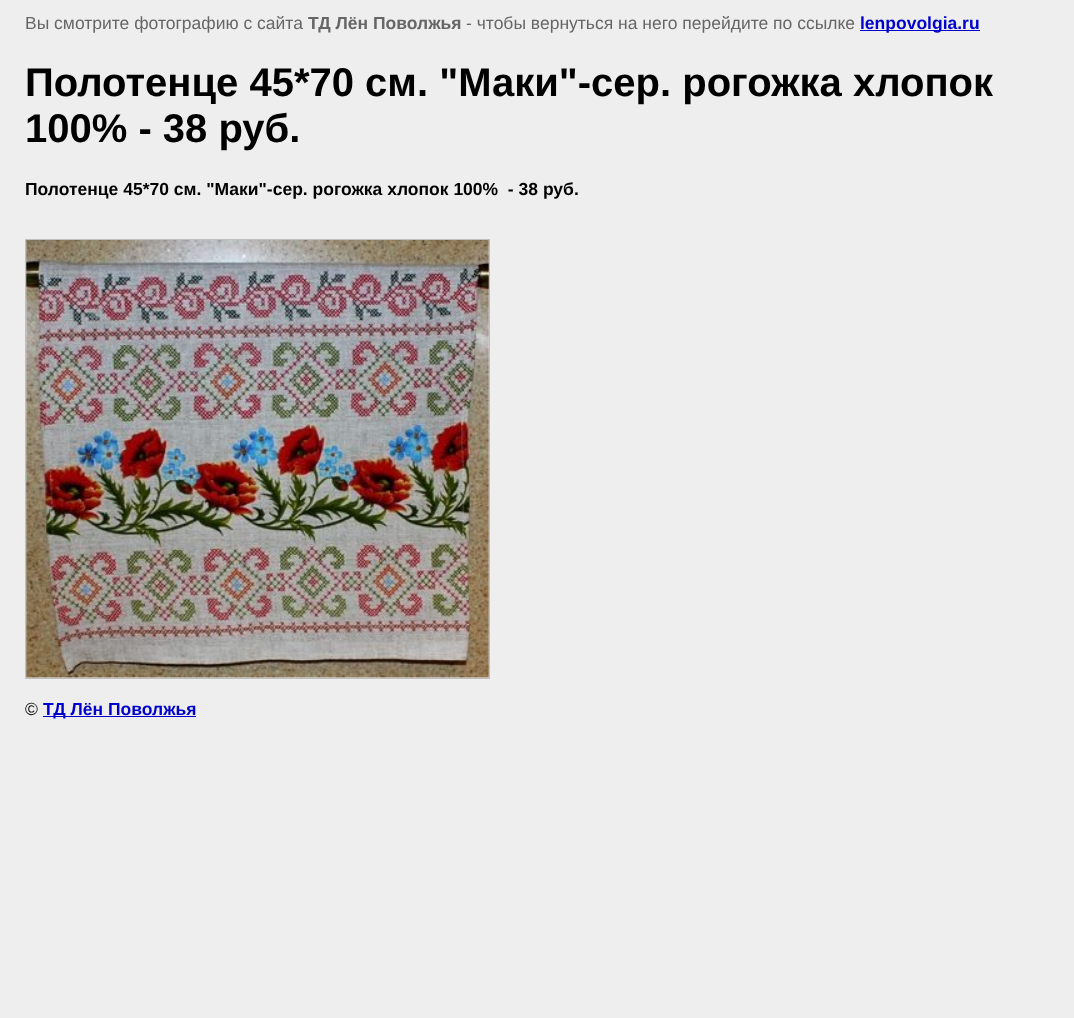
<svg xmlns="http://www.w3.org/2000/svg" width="1074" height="1018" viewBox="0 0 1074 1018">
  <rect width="100%" height="100%" fill="rgb(238,238,238)"/>
  <text x="25" y="29" font-family="Liberation Sans" font-size="17.5" fill="rgb(102,102,102)">Вы смотрите фотографию с сайта</text>
  <text x="308" y="29" font-family="Liberation Sans" font-size="17.5" font-weight="bold" fill="rgb(102,102,102)">ТД Лён Поволжья</text>
  <text x="466" y="29" font-family="Liberation Sans" font-size="17.5" fill="rgb(102,102,102)">- чтобы вернуться на него перейдите по ссылке</text>
  <rect x="860" y="30" width="120" height="1" fill="rgb(0,0,204)"/>
  <text x="860" y="29" font-family="Liberation Sans" font-size="17.5" font-weight="bold" fill="rgb(0,0,204)">lenpovolgia.ru</text>
  <g font-family="Liberation Sans" font-size="40" font-weight="bold" fill="rgb(0,0,0)">
    <text>
      <tspan x="25" y="96">Полотенце 45*70 см. "Маки"-сер. рогожка хлопок</tspan>
      <tspan x="25" y="142">100% - 38 руб.</tspan>
    </text>
  </g>
  <text x="25" y="195" font-family="Liberation Sans" font-size="17.5" font-weight="bold" fill="rgb(0,0,0)" xml:space="preserve">Полотенце 45*70 см. "Маки"-сер. рогожка хлопок 100%  - 38 руб.</text>
  <rect x="25.5" y="239.5" width="464" height="439" fill="none" stroke="rgb(192,192,192)"/>
  <image x="26" y="240" width="463" height="438" href="pic1.png"/>
  <text x="25" y="715" font-family="Liberation Sans" font-size="17.5" fill="rgb(0,0,0)">©</text>
  <rect x="43" y="716" width="153" height="1" fill="rgb(0,0,204)"/>
  <text x="43" y="715" font-family="Liberation Sans" font-size="17.5" font-weight="bold" fill="rgb(0,0,204)">ТД Лён Поволжья</text>
</svg>
